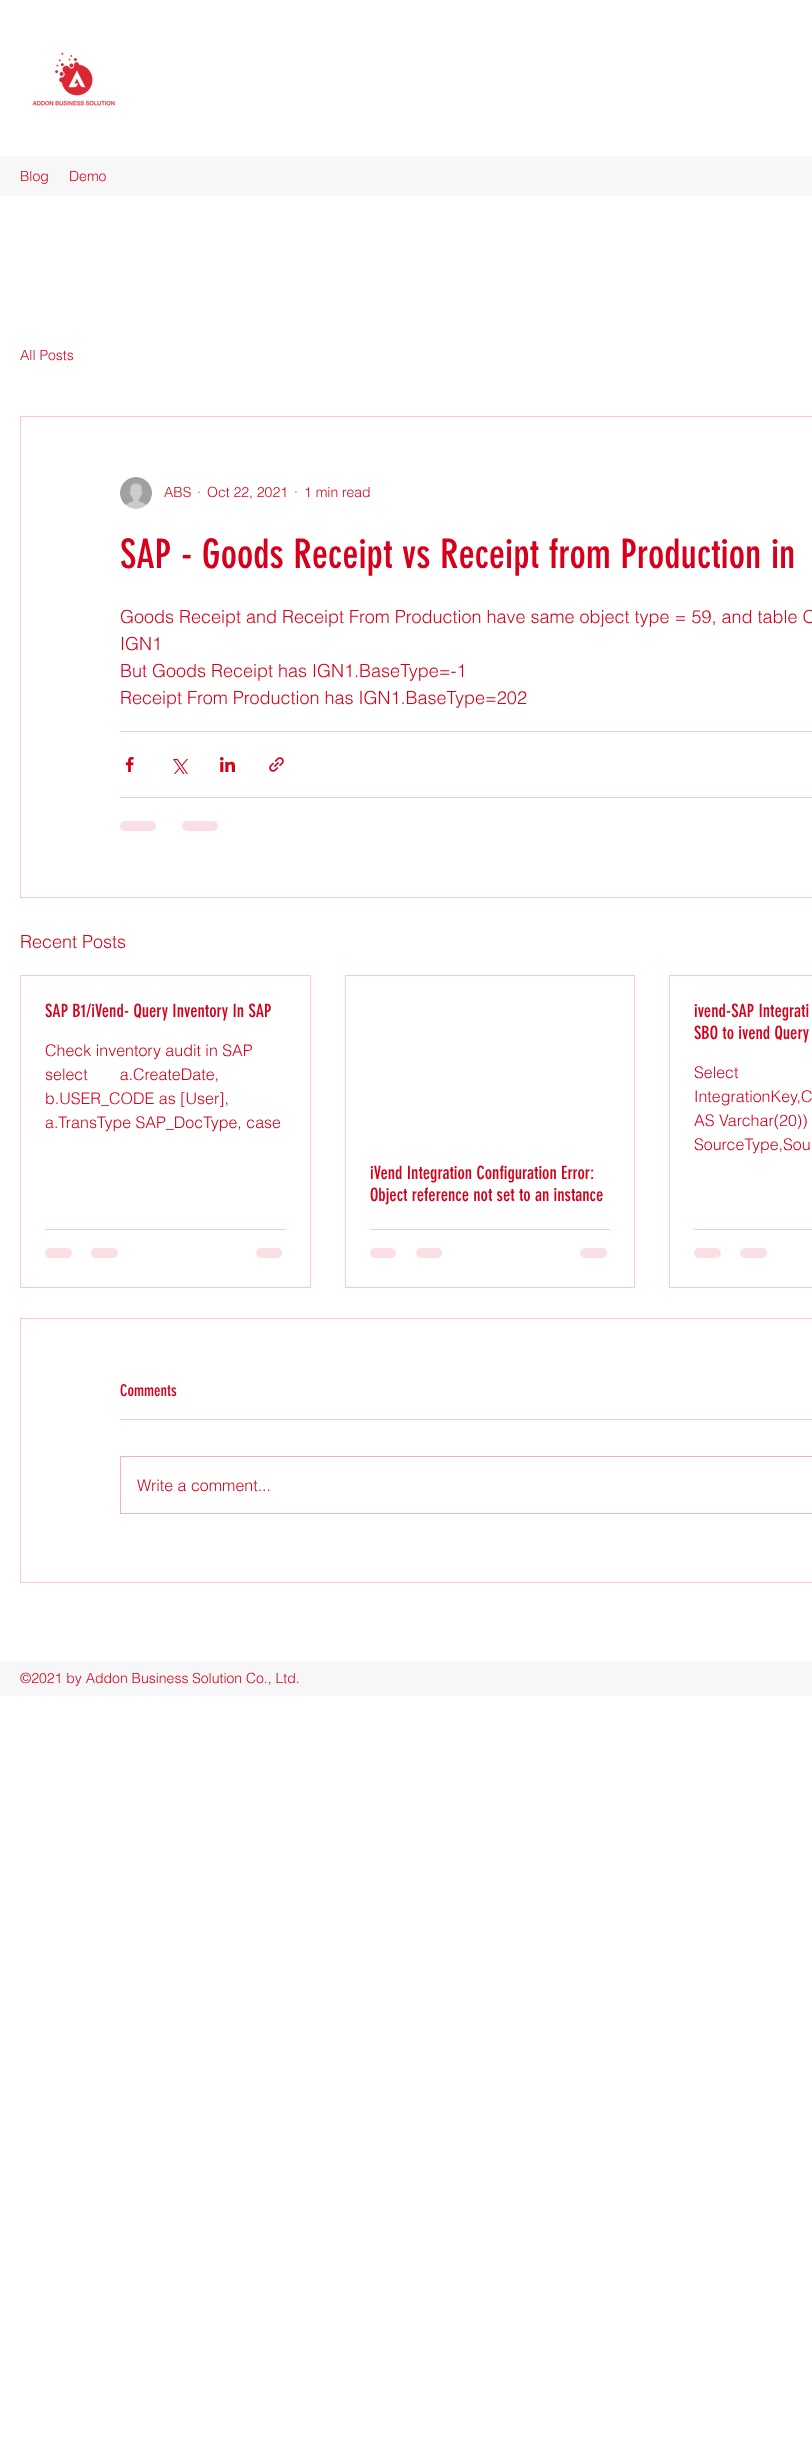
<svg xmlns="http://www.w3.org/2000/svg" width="812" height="2439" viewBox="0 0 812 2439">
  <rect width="100%" height="100%" fill="rgb(255,255,255)"/>
  <image x="32" y="52" width="83" height="54" href="pic1.png"/>
  <rect x="0" y="156" width="812" height="40" fill="rgb(247,247,247)"/>
  <g font-family="helvetica" font-size="14" font-weight="300" fill="rgb(214,0,28)">
    <text x="20" y="181">Blog</text>
    <text x="69" y="181">Demo</text>
    <text x="20" y="360">All Posts</text>
  </g>
  <rect x="20.5" y="416.5" width="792" height="481" fill="none" stroke="rgb(255,200,207)"/>
  <image x="120" y="477" width="32" height="32" href="pic2.png"/>
  <g font-family="helvetica" font-size="14" font-weight="300" fill="rgb(214,0,28)">
    <text x="164" y="497">ABS</text>
    <text x="197" y="497">·</text>
    <text x="207" y="497">Oct 22, 2021</text>
    <text x="294" y="497">·</text>
    <text x="304" y="497">1 min read</text>
  </g>
  <text x="120" y="568" font-family="'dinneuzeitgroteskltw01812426'" font-size="40" fill="rgb(214,0,28)">SAP - Goods Receipt vs Receipt from Production in</text>
  <g font-family="helvetica" font-size="18" font-weight="300" fill="rgb(214,0,28)">
    <text>
      <tspan x="120" y="623">Goods Receipt and Receipt From Production have same object type = 59, and table O</tspan>
      <tspan x="120" y="650">IGN1</tspan>
      <tspan x="120" y="677">But Goods Receipt has IGN1.BaseType=-1</tspan>
      <tspan x="120" y="704">Receipt From Production has IGN1.BaseType=202</tspan>
    </text>
  </g>
  <rect x="120" y="731" width="692" height="1" fill="rgb(247,204,210)"/>
  <image x="125" y="757" width="9" height="15" href="pic3.png"/>
  <image x="173" y="759" width="15" height="15" href="pic4.png"/>
  <image x="220" y="757" width="15" height="15" href="pic5.png"/>
  <image x="269" y="757" width="15" height="15" href="pic6.png"/>
  <rect x="120" y="797" width="692" height="1" fill="rgb(247,204,210)"/>
  <rect x="120" y="821" width="36" height="10" rx="5" fill="rgb(250,224,228)"/>
  <rect x="182" y="821" width="36" height="10" rx="5" fill="rgb(250,224,228)"/>
  <text x="20" y="948" font-family="helvetica" font-size="18" font-weight="300" fill="rgb(214,0,28)">Recent Posts</text>
  <rect x="20.5" y="975.5" width="290" height="312" fill="none" stroke="rgb(255,200,207)"/>
  <text x="45" y="1017" font-family="'dinneuzeitgroteskltw01812426'" font-size="18" fill="rgb(214,0,28)">SAP B1/iVend- Query Inventory In SAP</text>
  <g font-family="helvetica" font-size="16" font-weight="300" fill="rgb(214,0,28)">
    <text>
      <tspan x="45" y="1056">Check inventory audit in SAP</tspan>
      <tspan x="45" y="1080">select  a.CreateDate,</tspan>
      <tspan x="45" y="1104">b.USER_CODE as [User],</tspan>
      <tspan x="45" y="1128">a.TransType SAP_DocType, case</tspan>
    </text>
  </g>
  <rect x="45" y="1229" width="241" height="1" fill="rgb(247,204,210)"/>
  <rect x="45" y="1248" width="27" height="10" rx="5" fill="rgb(250,224,228)"/>
  <rect x="91" y="1248" width="27" height="10" rx="5" fill="rgb(250,224,228)"/>
  <rect x="256" y="1248" width="26" height="10" rx="5" fill="rgb(250,224,228)"/>
  <rect x="669.5" y="975.5" width="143" height="312" fill="none" stroke="rgb(255,200,207)"/>
  <g font-family="'dinneuzeitgroteskltw01812426'" font-size="18" fill="rgb(214,0,28)">
    <text>
      <tspan x="694" y="1017">ivend-SAP Integrati</tspan>
      <tspan x="694" y="1039">SBO to ivend Query</tspan>
    </text>
  </g>
  <g font-family="helvetica" font-size="16" font-weight="300" fill="rgb(214,0,28)">
    <text>
      <tspan x="694" y="1078">Select</tspan>
      <tspan x="694" y="1102">IntegrationKey,C</tspan>
      <tspan x="694" y="1126">AS Varchar(20))</tspan>
      <tspan x="694" y="1150">SourceType,Sou</tspan>
    </text>
  </g>
  <rect x="694" y="1229" width="118" height="1" fill="rgb(247,204,210)"/>
  <rect x="694" y="1248" width="27" height="10" rx="5" fill="rgb(250,224,228)"/>
  <rect x="740" y="1248" width="27" height="10" rx="5" fill="rgb(250,224,228)"/>
  <rect x="345.5" y="975.5" width="289" height="312" fill="none" stroke="rgb(255,200,207)"/>
  <g font-family="'dinneuzeitgroteskltw01812426'" font-size="18" fill="rgb(214,0,28)">
    <text>
      <tspan x="370" y="1179">iVend Integration Configuration Error:</tspan>
      <tspan x="370" y="1201">Object reference not set to an instance</tspan>
    </text>
  </g>
  <rect x="370" y="1229" width="240" height="1" fill="rgb(247,204,210)"/>
  <rect x="370" y="1248" width="26" height="10" rx="5" fill="rgb(250,224,228)"/>
  <rect x="416" y="1248" width="26" height="10" rx="5" fill="rgb(250,224,228)"/>
  <rect x="580" y="1248" width="27" height="10" rx="5" fill="rgb(250,224,228)"/>
  <rect x="20.5" y="1318.5" width="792" height="264" fill="none" stroke="rgb(255,200,207)"/>
  <text x="120" y="1396" font-family="'dinneuzeitgroteskltw01812426'" font-size="16" fill="rgb(214,0,28)">Comments</text>
  <rect x="120" y="1419" width="692" height="1" fill="rgb(247,204,210)"/>
  <rect x="120.5" y="1456.5" width="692" height="57" fill="none" stroke="rgb(243,179,187)"/>
  <text x="137" y="1491" font-family="helvetica" font-size="16" font-weight="300" fill="rgb(214,0,28)">Write a comment...</text>
  <rect x="0" y="1661" width="812" height="35" fill="rgb(247,247,247)"/>
  <text x="20" y="1683" font-family="helvetica" font-size="14" font-weight="300" fill="rgb(214,0,28)">©2021 by Addon Business Solution Co., Ltd.</text>
</svg>
